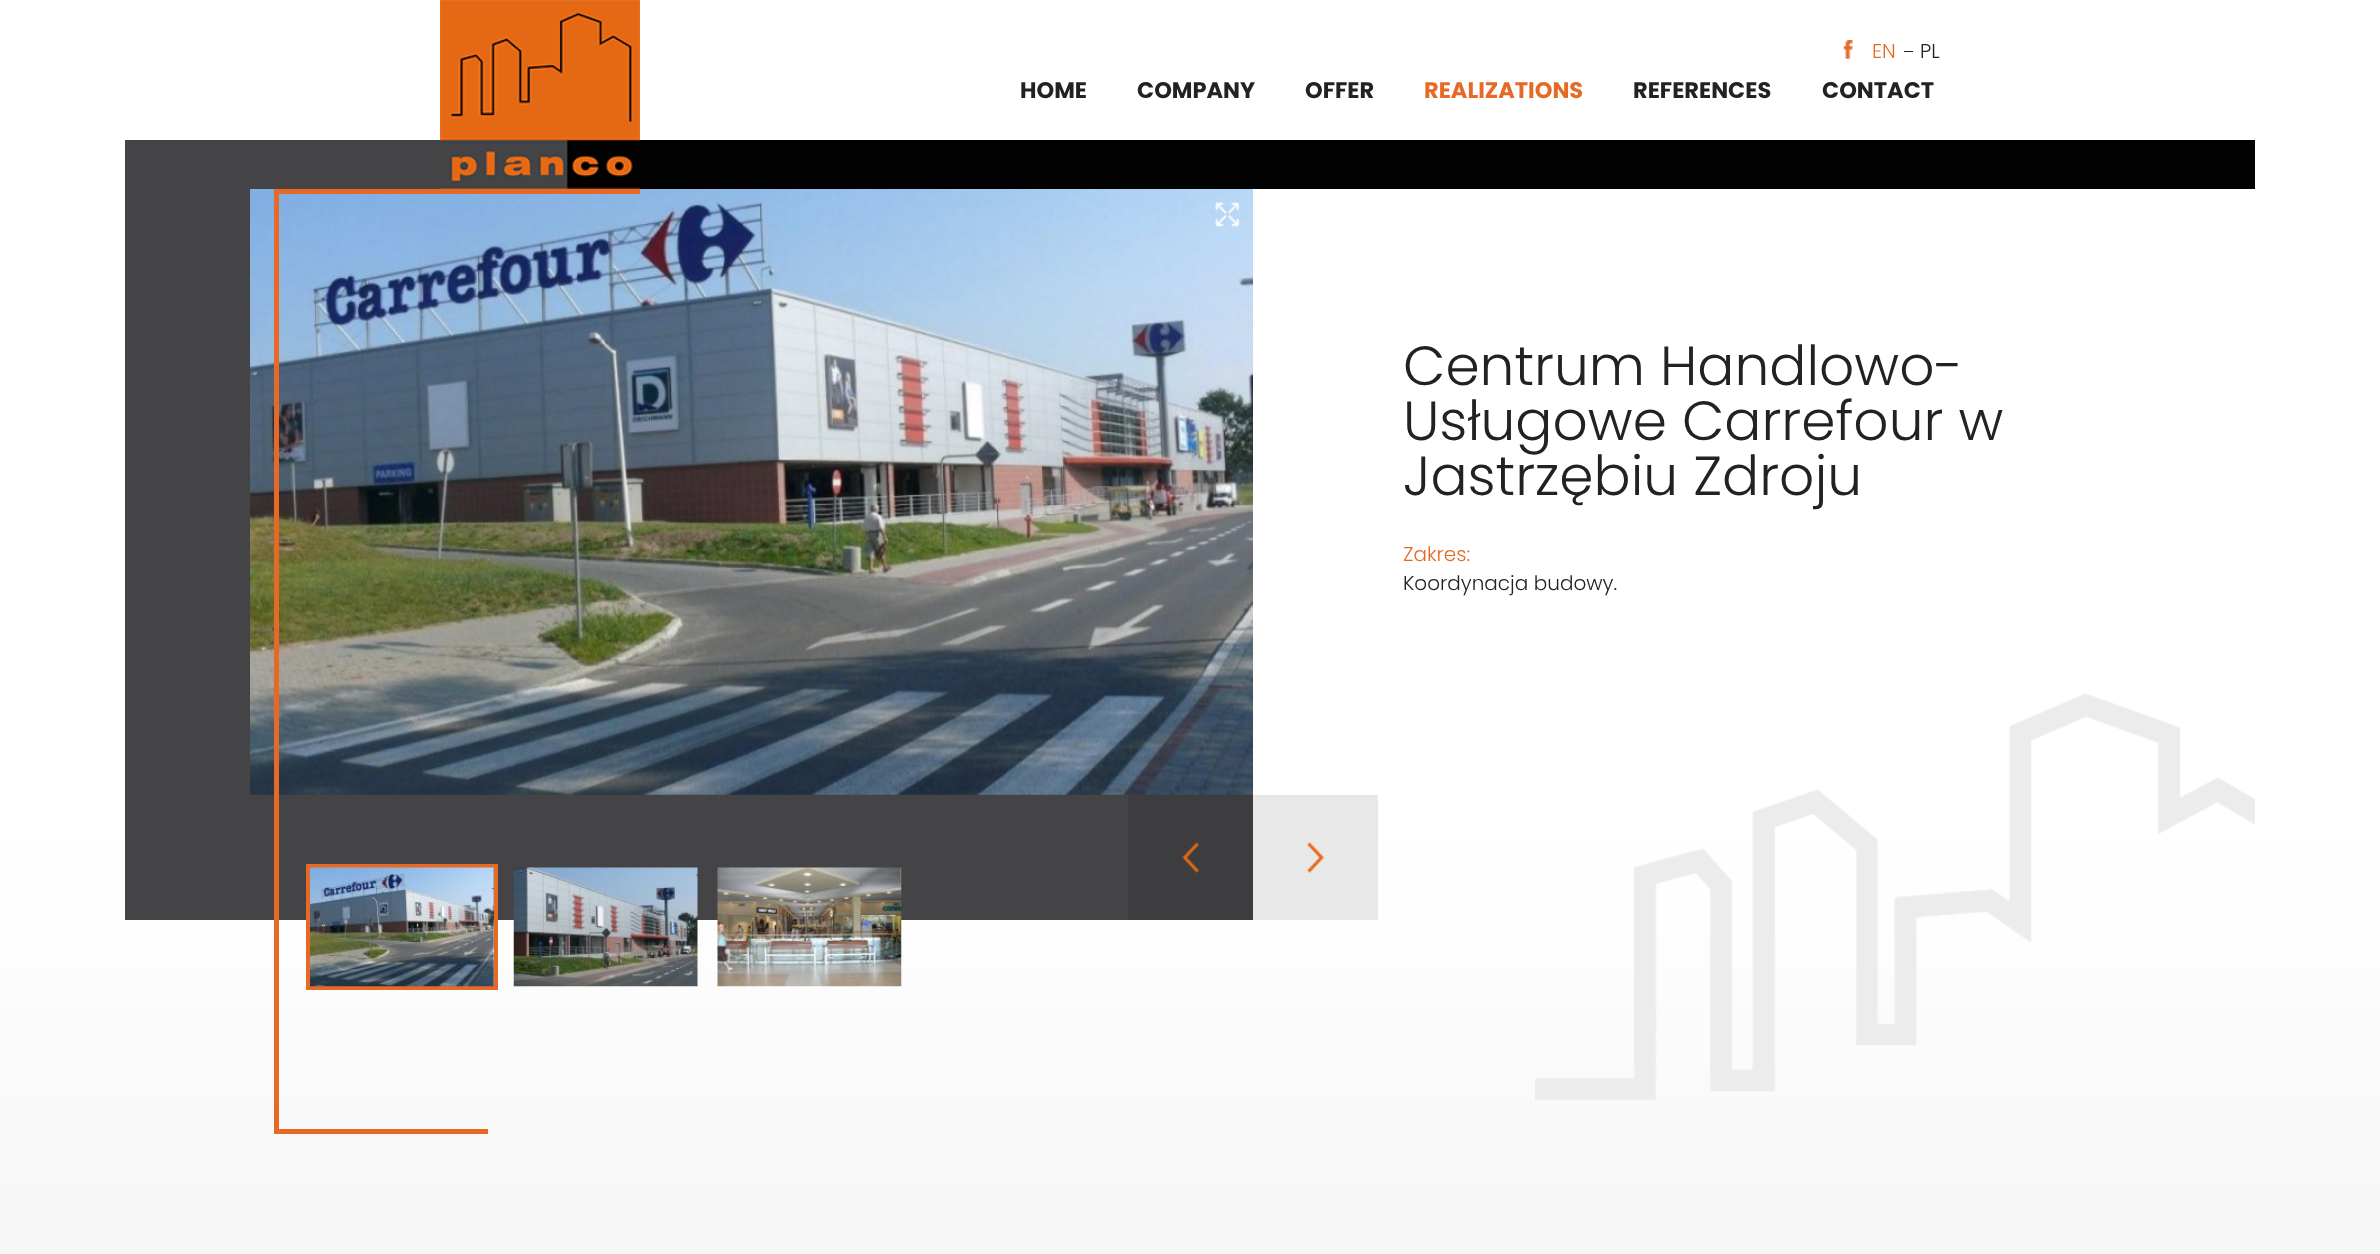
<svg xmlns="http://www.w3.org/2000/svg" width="2380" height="1254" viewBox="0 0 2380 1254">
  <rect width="100%" height="100%" fill="rgb(255,255,255)"/>
  <image x="0" y="693" width="2380" height="561" href="pic1.png"/>
  <rect x="638" y="140" width="1617" height="49" fill="rgb(2,2,2)"/>
  <rect x="125" y="140" width="317" height="49" fill="rgb(68,68,70)"/>
  <image x="440" y="0" width="200" height="189" href="pic2.png"/>
  <image x="1843" y="40" width="10" height="19" href="pic3.png"/>
  <text x="1872" y="58" font-family="Poppins" font-size="20" font-weight="300" fill="rgb(230,105,37)">EN</text>
  <rect x="1904" y="51" width="9" height="1" fill="rgb(34,34,34)"/>
  <text x="1920" y="58" font-family="Poppins" font-size="20" font-weight="300" fill="rgb(34,34,34)">PL</text>
  <g font-family="Poppins" font-size="22.5" font-weight="bold" fill="rgb(34,34,34)">
    <text x="1020" y="98">HOME</text>
    <text x="1137" y="98">COMPANY</text>
    <text x="1305" y="98">OFFER</text>
  </g>
  <text x="1424" y="98" font-family="Poppins" font-size="22.5" font-weight="bold" fill="rgb(230,105,37)">REALIZATIONS</text>
  <g font-family="Poppins" font-size="22.5" font-weight="bold" fill="rgb(34,34,34)">
    <text x="1633" y="98">REFERENCES</text>
    <text x="1822" y="98">CONTACT</text>
  </g>
  <rect x="250" y="794" width="1003" height="126" fill="rgb(68,68,70)"/>
  <image x="250" y="189" width="1003" height="606" href="pic4.png"/>
  <rect x="274" y="189" width="5" height="945" fill="rgb(230,105,37)"/>
  <rect x="274" y="189" width="366" height="5" fill="rgb(230,105,37)"/>
  <rect x="274" y="1129" width="214" height="5" fill="rgb(230,105,37)"/>
  <rect x="125" y="189" width="125" height="731" fill="rgb(68,68,70)"/>
  <image x="1215" y="202" width="25" height="25" href="pic5.png"/>
  <rect x="1128" y="795" width="125" height="125" fill="rgb(61,61,63)"/>
  <image x="1182" y="842" width="17" height="31" href="pic6.png"/>
  <rect x="1253" y="795" width="125" height="125" fill="rgb(232,232,232)"/>
  <image x="1307" y="842" width="17" height="31" href="pic7.png"/>
  <rect x="308" y="866" width="188" height="122" fill="none" stroke="rgb(230,105,37)" stroke-width="4"/>
  <image x="310" y="867" width="184" height="120" href="pic8.png"/>
  <image x="513" y="867" width="185" height="120" href="pic9.png"/>
  <image x="717" y="867" width="185" height="120" href="pic10.png"/>
  <g font-family="Poppins" font-size="55" font-weight="300" fill="rgb(34,34,34)">
    <text>
      <tspan x="1403" y="385">Centrum Handlowo-</tspan>
      <tspan x="1403" y="440">Usługowe Carrefour w</tspan>
      <tspan x="1403" y="495">Jastrzębiu Zdroju</tspan>
    </text>
  </g>
  <text x="1403" y="561" font-family="Poppins" font-size="20" font-weight="300" fill="rgb(230,105,37)">Zakres:</text>
  <text x="1403" y="590" font-family="Poppins" font-size="20" font-weight="300" fill="rgb(34,34,34)">Koordynacja budowy.</text>
</svg>
